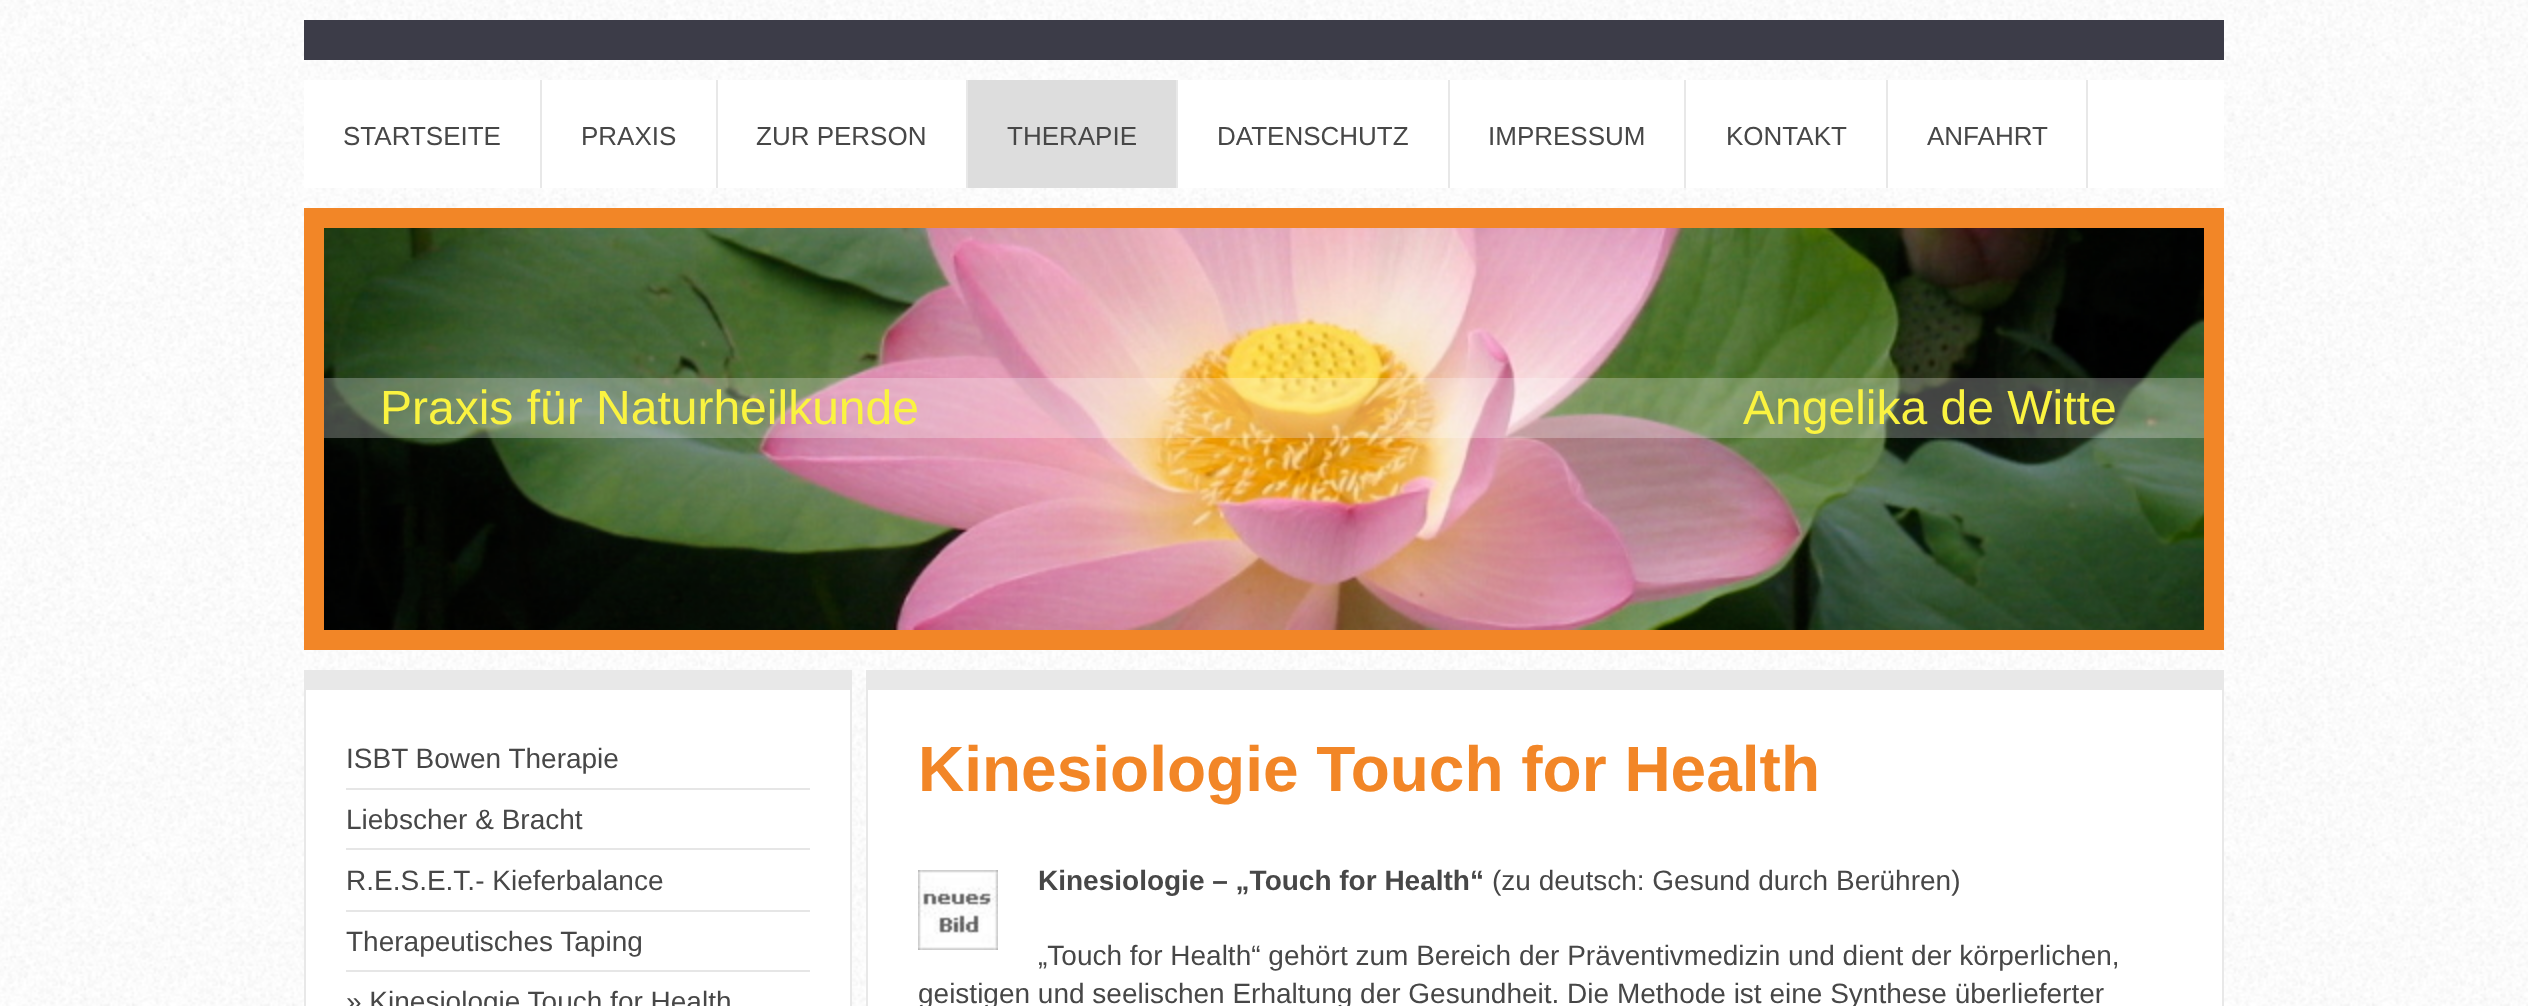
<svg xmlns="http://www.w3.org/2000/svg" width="2528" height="1006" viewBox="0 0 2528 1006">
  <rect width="100%" height="100%" fill="rgb(255,255,255)"/>
  <image x="0" y="0" width="2528" height="1006" href="pic1.png"/>
  <rect x="304" y="80" width="1920" height="108" fill="rgb(255,255,255)"/>
  <rect x="304" y="20" width="1920" height="40" fill="rgb(60,60,72)"/>
  <rect x="540" y="80" width="2" height="108" fill="rgb(232,232,232)"/>
  <text x="343" y="145" font-family="Liberation Sans" font-size="26" fill="rgb(71,71,71)">STARTSEITE</text>
  <rect x="716" y="80" width="2" height="108" fill="rgb(232,232,232)"/>
  <text x="581" y="145" font-family="Liberation Sans" font-size="26" fill="rgb(71,71,71)">PRAXIS</text>
  <rect x="966" y="80" width="2" height="108" fill="rgb(232,232,232)"/>
  <text x="756" y="145" font-family="Liberation Sans" font-size="26" fill="rgb(71,71,71)">ZUR PERSON</text>
  <rect x="968" y="80" width="208" height="108" fill="rgb(221,221,221)"/>
  <rect x="1176" y="80" width="2" height="108" fill="rgb(232,232,232)"/>
  <text x="1007" y="145" font-family="Liberation Sans" font-size="26" fill="rgb(71,71,71)">THERAPIE</text>
  <rect x="1448" y="80" width="2" height="108" fill="rgb(232,232,232)"/>
  <text x="1217" y="145" font-family="Liberation Sans" font-size="26" fill="rgb(71,71,71)">DATENSCHUTZ</text>
  <rect x="1684" y="80" width="2" height="108" fill="rgb(232,232,232)"/>
  <text x="1488" y="145" font-family="Liberation Sans" font-size="26" fill="rgb(71,71,71)">IMPRESSUM</text>
  <rect x="1886" y="80" width="2" height="108" fill="rgb(232,232,232)"/>
  <text x="1726" y="145" font-family="Liberation Sans" font-size="26" fill="rgb(71,71,71)">KONTAKT</text>
  <rect x="2086" y="80" width="2" height="108" fill="rgb(232,232,232)"/>
  <text x="1927" y="145" font-family="Liberation Sans" font-size="26" fill="rgb(71,71,71)">ANFAHRT</text>
  <rect x="304" y="208" width="1920" height="442" fill="rgb(242,134,39)"/>
  <image x="324" y="228" width="1880" height="402" href="pic2.png"/>
  <rect x="324" y="378" width="1880" height="60" fill="rgba(255,255,255,0.26)"/>
  <text x="380" y="424" font-family="Liberation Sans" font-size="48" fill="rgb(250,243,64)" xml:space="preserve">Praxis für Naturheilkunde                                                              Angelika de Witte</text>
  <rect x="306" y="690" width="544" height="316" fill="rgb(255,255,255)"/>
  <rect x="306" y="670" width="544" height="20" fill="rgb(232,232,232)"/>
  <rect x="850" y="670" width="2" height="336" fill="rgb(232,232,232)"/>
  <rect x="304" y="670" width="2" height="336" fill="rgb(232,232,232)"/>
  <rect x="346" y="788" width="464" height="2" fill="rgb(230,230,230)"/>
  <text x="346" y="768" font-family="Liberation Sans" font-size="28" fill="rgb(71,71,71)">ISBT Bowen Therapie</text>
  <rect x="346" y="848" width="464" height="2" fill="rgb(230,230,230)"/>
  <text x="346" y="829" font-family="Liberation Sans" font-size="28" fill="rgb(71,71,71)">Liebscher &amp; Bracht</text>
  <rect x="346" y="910" width="464" height="2" fill="rgb(230,230,230)"/>
  <text x="346" y="890" font-family="Liberation Sans" font-size="28" fill="rgb(71,71,71)">R.E.S.E.T.- Kieferbalance</text>
  <rect x="346" y="970" width="464" height="2" fill="rgb(230,230,230)"/>
  <g font-family="Liberation Sans" font-size="28" fill="rgb(71,71,71)">
    <text x="346" y="951">Therapeutisches Taping</text>
    <text x="346" y="1011">» Kinesiologie Touch for Health</text>
  </g>
  <rect x="868" y="690" width="1354" height="316" fill="rgb(255,255,255)"/>
  <rect x="868" y="670" width="1354" height="20" fill="rgb(232,232,232)"/>
  <rect x="2222" y="670" width="2" height="336" fill="rgb(232,232,232)"/>
  <rect x="866" y="670" width="2" height="336" fill="rgb(232,232,232)"/>
  <text x="918" y="791" font-family="Liberation Sans" font-size="64" font-weight="bold" fill="rgb(242,134,39)">Kinesiologie Touch for Health</text>
  <text x="1038" y="890" font-family="Liberation Sans" font-size="28" font-weight="bold" fill="rgb(71,71,71)">Kinesiologie – „Touch for Health“</text>
  <g font-family="Liberation Sans" font-size="28" fill="rgb(71,71,71)">
    <text x="1492" y="890">(zu deutsch: Gesund durch Berühren)</text>
    <text x="1038" y="965">„Touch for Health“ gehört zum Bereich der Präventivmedizin und dient der körperlichen,</text>
    <text x="918" y="1003">geistigen und seelischen Erhaltung der Gesundheit. Die Methode ist eine Synthese überlieferter</text>
  </g>
  <image x="918" y="870" width="80" height="80" href="pic3.png"/>
</svg>
